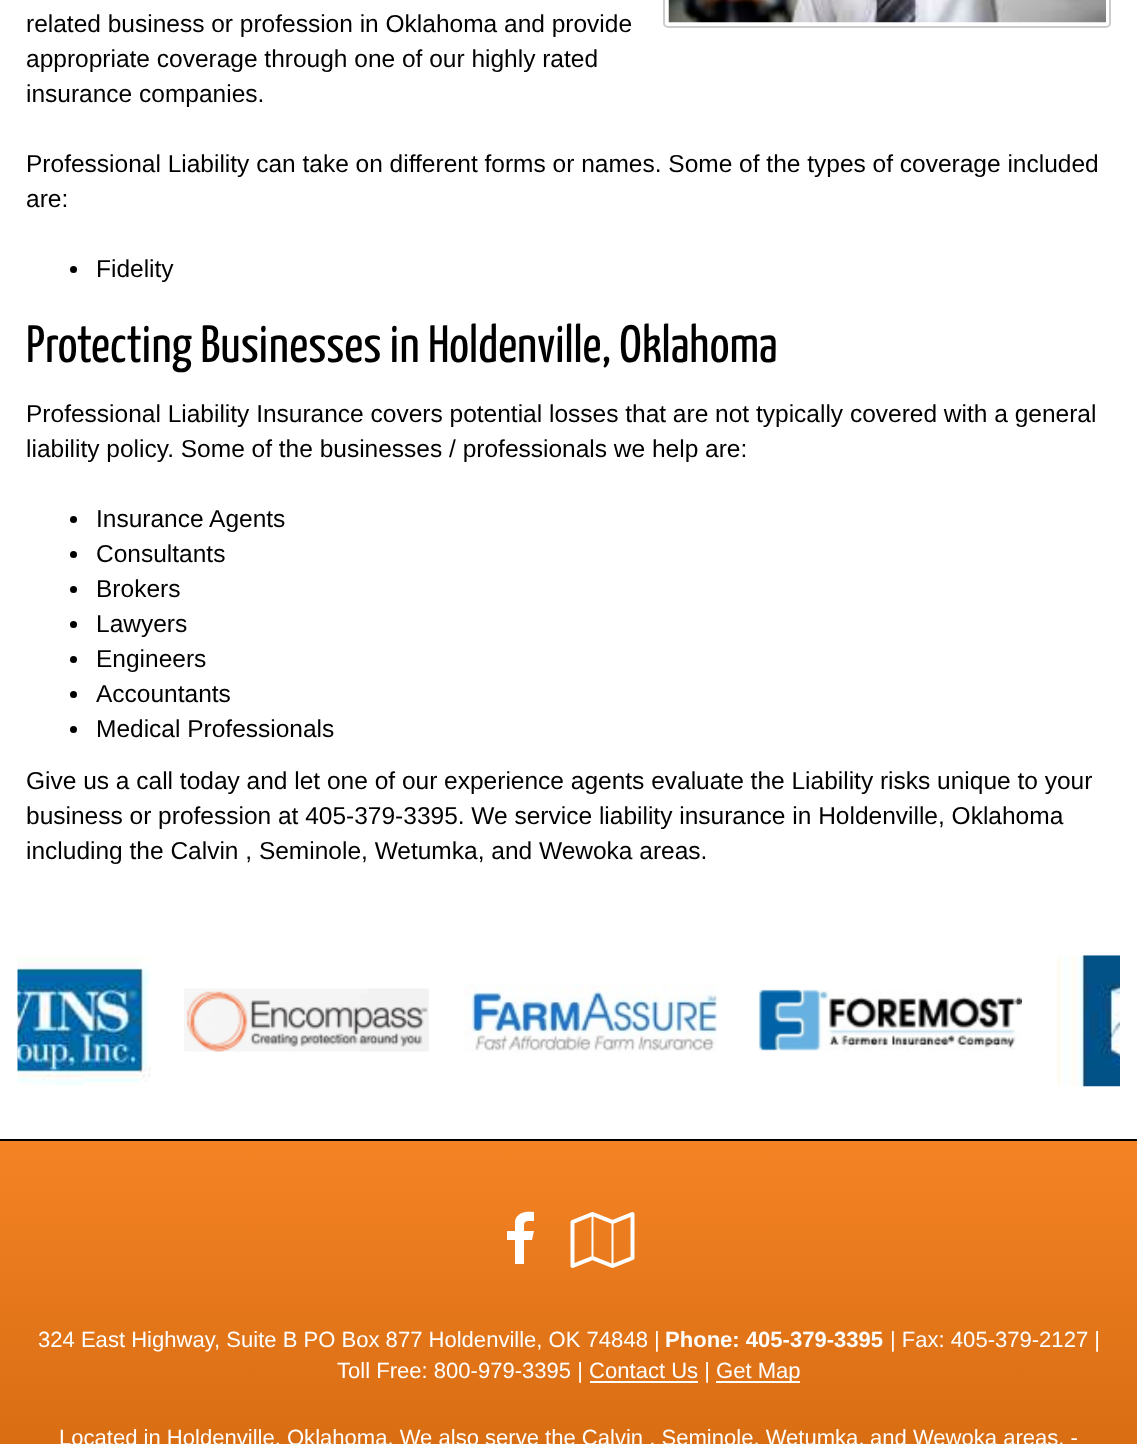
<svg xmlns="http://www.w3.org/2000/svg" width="1137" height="1444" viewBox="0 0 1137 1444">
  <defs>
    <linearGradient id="g1" gradientUnits="userSpaceOnUse" x1="569" y1="1141" x2="569" y2="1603"><stop offset="0" stop-color="rgb(244,131,36)"/><stop offset="1" stop-color="rgb(203,98,10)"/></linearGradient>
  </defs>
  <rect width="100%" height="100%" fill="rgb(255,255,255)"/>
  <rect x="664" y="-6" width="446" height="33" rx="4" fill="none" stroke="rgb(204,204,204)" stroke-width="2"/>
  <image x="668" y="0" width="438" height="23" href="pic1.png"/>
  <g font-family="Liberation Sans" font-size="24.5" fill="rgb(0,0,0)">
    <text>
      <tspan x="26" y="32">related business or profession in Oklahoma and provide</tspan>
      <tspan x="26" y="67">appropriate coverage through one of our highly rated</tspan>
      <tspan x="26" y="102">insurance companies.</tspan>
    </text>
    <text>
      <tspan x="26" y="172">Professional Liability can take on different forms or names. Some of the types of coverage included</tspan>
      <tspan x="26" y="207">are:</tspan>
    </text>
  </g>
  <circle cx="73.5" cy="269.5" r="3.5" fill="rgb(0,0,0)"/>
  <text x="96" y="277" font-family="Liberation Sans" font-size="24.5" fill="rgb(0,0,0)">Fidelity</text>
  <text x="26" y="362" font-family="Yanone Kaffeesatz" font-size="52.5" fill="rgb(0,0,0)">Protecting Businesses in Holdenville, Oklahoma</text>
  <g font-family="Liberation Sans" font-size="24.5" fill="rgb(0,0,0)">
    <text>
      <tspan x="26" y="422">Professional Liability Insurance covers potential losses that are not typically covered with a general</tspan>
      <tspan x="26" y="457">liability policy. Some of the businesses / professionals we help are:</tspan>
    </text>
  </g>
  <circle cx="73.5" cy="519.5" r="3.5" fill="rgb(0,0,0)"/>
  <text x="96" y="527" font-family="Liberation Sans" font-size="24.5" fill="rgb(0,0,0)">Insurance Agents</text>
  <circle cx="73.5" cy="554.5" r="3.5" fill="rgb(0,0,0)"/>
  <text x="96" y="562" font-family="Liberation Sans" font-size="24.5" fill="rgb(0,0,0)">Consultants</text>
  <circle cx="73.5" cy="589.5" r="3.5" fill="rgb(0,0,0)"/>
  <text x="96" y="597" font-family="Liberation Sans" font-size="24.5" fill="rgb(0,0,0)">Brokers</text>
  <circle cx="73.5" cy="624.5" r="3.5" fill="rgb(0,0,0)"/>
  <text x="96" y="632" font-family="Liberation Sans" font-size="24.5" fill="rgb(0,0,0)">Lawyers</text>
  <circle cx="73.5" cy="659.5" r="3.5" fill="rgb(0,0,0)"/>
  <text x="96" y="667" font-family="Liberation Sans" font-size="24.5" fill="rgb(0,0,0)">Engineers</text>
  <circle cx="73.5" cy="694.5" r="3.5" fill="rgb(0,0,0)"/>
  <text x="96" y="702" font-family="Liberation Sans" font-size="24.5" fill="rgb(0,0,0)">Accountants</text>
  <circle cx="73.5" cy="729.5" r="3.5" fill="rgb(0,0,0)"/>
  <g font-family="Liberation Sans" font-size="24.5" fill="rgb(0,0,0)">
    <text x="96" y="737">Medical Professionals</text>
    <text>
      <tspan x="26" y="789">Give us a call today and let one of our experience agents evaluate the Liability risks unique to your</tspan>
      <tspan x="26" y="824">business or profession at 405-379-3395. We service liability insurance in Holdenville, Oklahoma</tspan>
      <tspan x="26" y="859">including the Calvin , Seminole, Wetumka, and Wewoka areas.</tspan>
    </text>
  </g>
  <image x="17" y="956" width="134" height="130" href="pic2.png"/>
  <image x="184" y="988" width="245" height="64" href="pic3.png"/>
  <image x="464" y="983" width="254" height="70" href="pic4.png"/>
  <image x="759" y="989" width="263" height="62" href="pic5.png"/>
  <image x="1057" y="955" width="63" height="132" href="pic6.png"/>
  <rect x="0" y="1141" width="1137" height="303" fill="url(#g1)"/>
  <rect x="0" y="1139" width="1137" height="2" fill="rgb(0,0,0)"/>
  <path d="M534 1212C526 1211 517 1212 515 1221V1231H507V1240H515V1264H524V1240H532L534 1231H524C524 1221 523 1221 534 1221Z" fill="rgb(255,255,255)"/>
  <image x="570" y="1212" width="65" height="56" href="pic7.png"/>
  <text x="38" y="1347" font-family="Liberation Sans" font-size="22.05" fill="rgb(255,255,255)">324 East Highway, Suite B PO Box 877 Holdenville, OK 74848 |</text>
  <text x="665" y="1347" font-family="Liberation Sans" font-size="22.05" font-weight="bold" fill="rgb(255,255,255)">Phone: 405-379-3395</text>
  <g font-family="Liberation Sans" font-size="22.05" fill="rgb(255,255,255)">
    <text x="890" y="1347">| Fax: 405-379-2127 |</text>
    <text x="337" y="1378">Toll Free: 800-979-3395 | Contact Us |</text>
  </g>
  <rect x="716" y="1381" width="84" height="2" fill="rgb(255,255,255)"/>
  <text x="716" y="1378" font-family="Liberation Sans" font-size="22.05" fill="rgb(255,255,255)">Get Map</text>
  <rect x="590" y="1381" width="108" height="2" fill="rgb(255,255,255)"/>
  <g font-family="Liberation Sans" font-size="22.05" fill="rgb(255,255,255)">
    <text x="59" y="1445">Located in Holdenville, Oklahoma. We also serve the Calvin , Seminole, Wetumka,</text>
    <text x="870" y="1445">and Wewoka areas. -</text>
  </g>
</svg>
